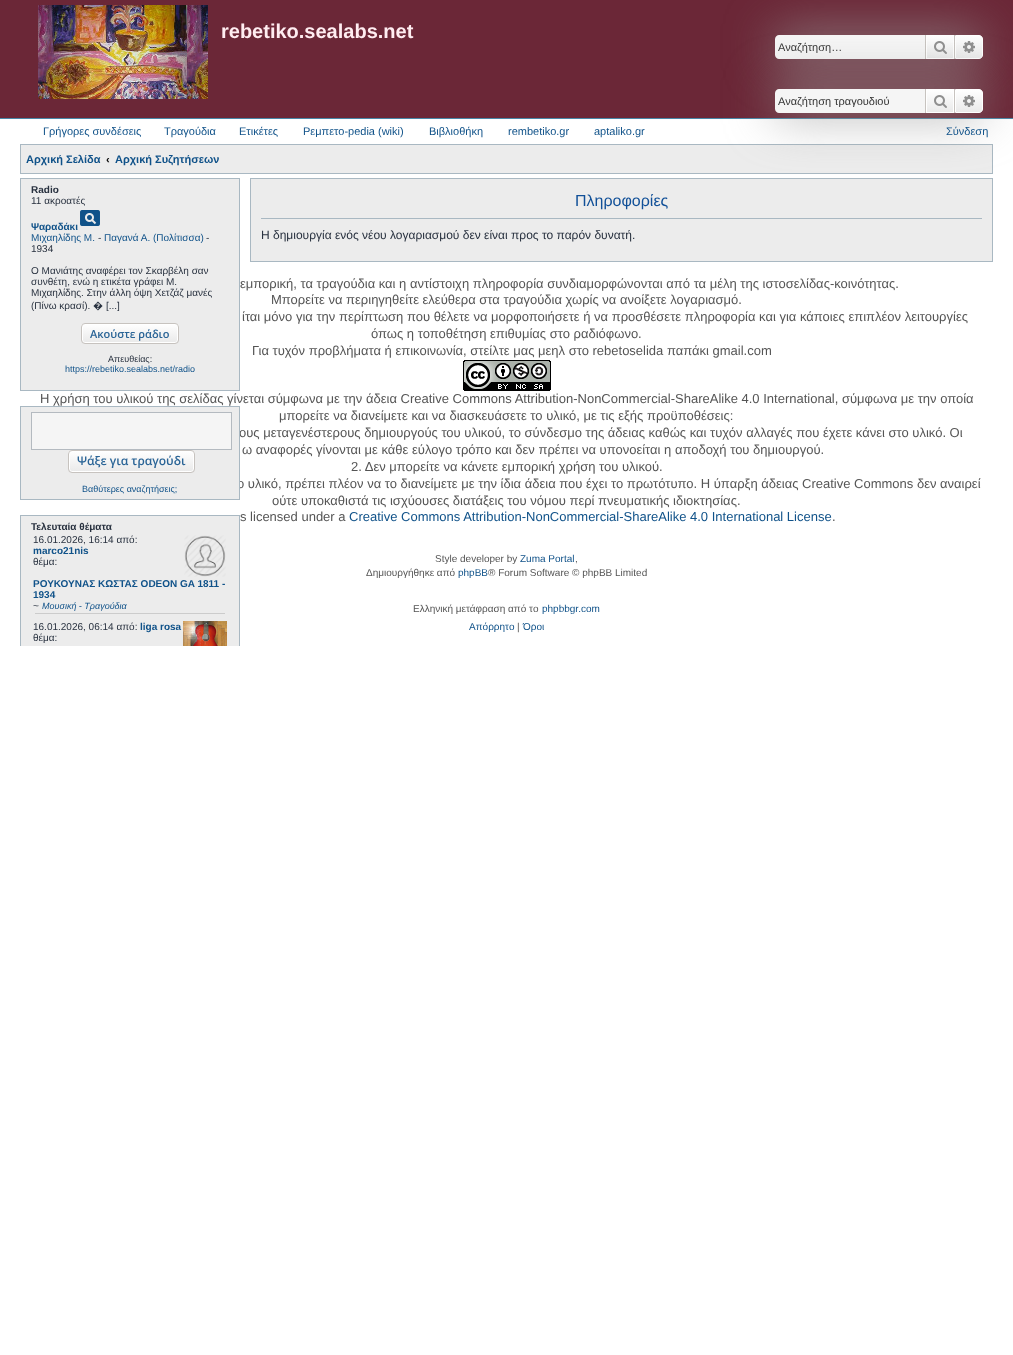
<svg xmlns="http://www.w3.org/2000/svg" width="1013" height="1355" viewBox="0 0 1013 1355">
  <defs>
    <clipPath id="clip1"><rect x="778" y="41" width="140" height="12"/></clipPath>
    <linearGradient id="g1" gradientUnits="userSpaceOnUse" x1="940" y1="35" x2="940" y2="59"><stop offset="0" stop-color="rgb(255,255,255)"/><stop offset="1" stop-color="rgb(233,233,233)"/></linearGradient>
    <linearGradient id="g2" gradientUnits="userSpaceOnUse" x1="969" y1="35" x2="969" y2="59"><stop offset="0" stop-color="rgb(255,255,255)"/><stop offset="1" stop-color="rgb(233,233,233)"/></linearGradient>
    <clipPath id="clip2"><rect x="778" y="95" width="140" height="12"/></clipPath>
    <linearGradient id="g3" gradientUnits="userSpaceOnUse" x1="940" y1="89" x2="940" y2="113"><stop offset="0" stop-color="rgb(255,255,255)"/><stop offset="1" stop-color="rgb(233,233,233)"/></linearGradient>
    <linearGradient id="g4" gradientUnits="userSpaceOnUse" x1="969" y1="89" x2="969" y2="113"><stop offset="0" stop-color="rgb(255,255,255)"/><stop offset="1" stop-color="rgb(233,233,233)"/></linearGradient>
    <clipPath id="clip3"><rect x="81" y="323" width="98" height="21" rx="4"/></clipPath>
    <linearGradient id="g5" gradientUnits="userSpaceOnUse" x1="130" y1="324" x2="130" y2="343"><stop offset="0" stop-color="rgb(255,255,255)"/><stop offset="1" stop-color="rgb(233,233,233)"/></linearGradient>
    <clipPath id="clip4"><rect x="68" y="450" width="127" height="23" rx="4"/></clipPath>
    <linearGradient id="g6" gradientUnits="userSpaceOnUse" x1="132" y1="451" x2="132" y2="472"><stop offset="0" stop-color="rgb(255,255,255)"/><stop offset="1" stop-color="rgb(233,233,233)"/></linearGradient>
    <clipPath id="clip5"><rect x="20" y="178" width="220" height="468"/></clipPath>
  </defs>
  <rect width="100%" height="100%" fill="rgb(255,255,255)"/>
  <rect x="0" y="0" width="1013" height="118" fill="rgb(107,39,55)"/>
  <rect x="0" y="118" width="1013" height="1" fill="rgb(71,135,167)"/>
  <image x="38" y="5" width="170" height="94" href="pic1.png"/>
  <text x="221" y="38" font-family="Liberation Sans" font-size="20" font-weight="bold" fill="rgb(255,237,241)">rebetiko.sealabs.net</text>
  <rect x="775" y="35" width="208" height="24" rx="4" fill="rgb(153,153,153)" filter="blur(25px)"/>
  <path d="M779 35H925V59H779C777 59 775 57 775 55V39C775 37 777 35 779 35Z" fill="rgb(245,245,245)"/>
  <g clip-path="url(#clip1)">
    <text x="778" y="51" font-family="Liberation Sans" font-size="11" fill="rgb(51,51,51)">Αναζήτηση…</text>
  </g>
  <rect x="927" y="36" width="26" height="22" fill="url(#g1)"/>
  <rect x="926.5" y="35.5" width="27" height="23" fill="none" stroke="rgb(255,255,255)"/>
  <rect x="954" y="35" width="1" height="24" fill="rgb(199,195,191)"/>
  <rect x="925" y="35" width="1" height="24" fill="rgb(199,195,191)"/>
  <image x="934" y="41" width="13" height="13" href="pic2.png"/>
  <path d="M955.5 35.5H979C981 35.5 982.5 37 982.5 39V55C982.5 57 981 58.5 979 58.5H955.5Z" fill="url(#g2)" stroke="rgb(255,255,255)"/>
  <image x="963" y="41" width="12" height="12" href="pic3.png"/>
  <rect x="20.5" y="144.5" width="972" height="29" fill="rgb(236,236,236)" stroke="rgb(169,184,194)"/>
  <rect x="775" y="89" width="208" height="24" rx="4" fill="rgb(153,153,153)" filter="blur(25px)"/>
  <path d="M779 89H925V113H779C777 113 775 111 775 109V93C775 91 777 89 779 89Z" fill="rgb(245,245,245)"/>
  <g clip-path="url(#clip2)">
    <text x="778" y="105" font-family="Liberation Sans" font-size="11" fill="rgb(51,51,51)">Αναζήτηση τραγουδιού</text>
  </g>
  <rect x="927" y="90" width="26" height="22" fill="url(#g3)"/>
  <rect x="926.5" y="89.5" width="27" height="23" fill="none" stroke="rgb(255,255,255)"/>
  <rect x="954" y="89" width="1" height="24" fill="rgb(199,195,191)"/>
  <rect x="925" y="89" width="1" height="24" fill="rgb(199,195,191)"/>
  <image x="934" y="95" width="13" height="13" href="pic2.png"/>
  <path d="M955.5 89.5H979C981 89.5 982.5 91 982.5 93V109C982.5 111 981 112.5 979 112.5H955.5Z" fill="url(#g4)" stroke="rgb(255,255,255)"/>
  <image x="963" y="95" width="12" height="12" href="pic3.png"/>
  <g font-family="Liberation Sans" font-size="11" fill="rgb(16,82,137)">
    <text x="43" y="135">Γρήγορες συνδέσεις</text>
    <text x="164" y="135">Τραγούδια</text>
    <text x="239" y="135">Ετικέτες</text>
    <text x="303" y="135">Ρεμπετο-pedia (wiki)</text>
    <text x="429" y="135">Βιβλιοθήκη</text>
    <text x="508" y="135">rembetiko.gr</text>
    <text x="594" y="135">aptaliko.gr</text>
    <text x="946" y="135">Σύνδεση</text>
  </g>
  <text x="26" y="163" font-family="Liberation Sans" font-size="11" font-weight="bold" fill="rgb(16,82,137)">Αρχική Σελίδα</text>
  <text x="106" y="163" font-family="Liberation Sans" font-size="11" font-weight="bold" fill="rgb(0,0,0)">‹</text>
  <text x="115" y="163" font-family="Liberation Sans" font-size="11" font-weight="bold" fill="rgb(16,82,137)">Αρχική Συζητήσεων</text>
  <rect x="20.5" y="178.5" width="219" height="212" fill="rgb(236,236,236)" stroke="rgb(169,184,194)"/>
  <text x="31" y="193" font-family="Liberation Sans" font-size="10" font-weight="bold" fill="rgb(40,49,63)">Radio</text>
  <text x="31" y="204" font-family="Liberation Sans" font-size="10" fill="rgb(40,49,63)">11 ακροατές</text>
  <image x="80" y="210" width="20" height="16" href="pic4.png"/>
  <text x="31" y="230" font-family="Liberation Sans" font-size="10" font-weight="bold" fill="rgb(16,82,137)">Ψαραδάκι</text>
  <text x="31" y="241" font-family="Liberation Sans" font-size="10" fill="rgb(16,82,137)">Μιχαηλίδης Μ.</text>
  <text x="98" y="241" font-family="Liberation Sans" font-size="10" fill="rgb(40,49,63)">-</text>
  <text x="104" y="241" font-family="Liberation Sans" font-size="10" fill="rgb(16,82,137)">Παγανά Α. (Πολίτισσα)</text>
  <g font-family="Liberation Sans" font-size="10" fill="rgb(40,49,63)">
    <text x="206" y="241">-</text>
    <text x="31" y="252">1934</text>
    <text>
      <tspan x="31" y="274">Ο Μανιάτης αναφέρει τον Σκαρβέλη σαν</tspan>
      <tspan x="31" y="285">συνθέτη, ενώ η ετικέτα γράφει Μ.</tspan>
      <tspan x="31" y="296">Μιχαηλίδης. Στην άλλη όψη Χετζάζ μανές</tspan>
      <tspan x="31" y="309">(Πίνω κρασί).</tspan>
    </text>
  </g>
  <text x="93" y="309" font-family="Noto Sans" font-size="10" fill="rgb(40,49,63)">�</text>
  <text x="106" y="309" font-family="Liberation Sans" font-size="10" fill="rgb(40,49,63)">[...]</text>
  <g clip-path="url(#clip3)">
    <rect x="81" y="324" width="98" height="19" fill="url(#g5)"/>
  </g>
  <rect x="82.5" y="324.5" width="95" height="18" rx="2.5" fill="none" stroke="rgb(255,255,255)"/>
  <rect x="81.5" y="323.5" width="97" height="20" rx="3.5" fill="none" stroke="rgb(199,195,191)"/>
  <text x="90" y="338" font-family="Open Sans" font-size="11" font-weight="600" fill="rgb(42,100,150)">Ακούστε ράδιο</text>
  <text x="108" y="362" font-family="Liberation Sans" font-size="9" fill="rgb(40,49,63)">Απευθείας:</text>
  <text x="65" y="372" font-family="Liberation Sans" font-size="9" fill="rgb(16,82,137)">https://rebetiko.sealabs.net/radio</text>
  <g font-family="Liberation Sans" font-size="13" fill="rgb(85,85,85)">
    <text x="239" y="437">ους μεταγενέστερους δημιουργούς του υλικού, το σύνδεσμο της άδειας καθώς και τυχόν αλλαγές που έχετε κάνει στο υλικό. Οι</text>
    <text x="237" y="488">ο υλικό, πρέπει πλέον να το διανείμετε με την ίδια άδεια που έχει το πρωτότυπο. Η ύπαρξη άδειας Creative Commons δεν αναιρεί</text>
  </g>
  <rect x="20.5" y="406.5" width="219" height="93" fill="rgb(236,236,236)" stroke="rgb(169,184,194)"/>
  <rect x="31.5" y="412.5" width="200" height="37" fill="rgb(245,245,245)" stroke="rgb(180,186,192)"/>
  <g clip-path="url(#clip4)">
    <rect x="68" y="451" width="127" height="21" fill="url(#g6)"/>
  </g>
  <rect x="69.5" y="451.5" width="124" height="20" rx="2.5" fill="none" stroke="rgb(255,255,255)"/>
  <rect x="68.5" y="450.5" width="126" height="22" rx="3.5" fill="none" stroke="rgb(199,195,191)"/>
  <text x="77" y="465" font-family="Open Sans" font-size="12" font-weight="600" fill="rgb(42,100,150)">Ψάξε για τραγούδι</text>
  <text x="82" y="492" font-family="Liberation Sans" font-size="9" fill="rgb(16,82,137)">Βαθύτερες αναζητήσεις;</text>
  <rect x="21" y="516" width="218" height="130" fill="rgb(236,236,236)"/>
  <g clip-path="url(#clip5)">
    <rect x="20.5" y="515.5" width="219" height="451" fill="none" stroke="rgb(169,184,194)"/>
  </g>
  <text x="31" y="530" font-family="Liberation Sans" font-size="10" font-weight="bold" fill="rgb(40,49,63)">Τελευταία θέματα</text>
  <text x="33" y="543" font-family="Liberation Sans" font-size="10" fill="rgb(40,49,63)">16.01.2026, 16:14 από:</text>
  <image x="184" y="535" width="42" height="42" href="pic5.png"/>
  <text x="33" y="554" font-family="Liberation Sans" font-size="10" font-weight="bold" fill="rgb(16,82,137)">marco21nis</text>
  <text x="33" y="565" font-family="Liberation Sans" font-size="10" fill="rgb(40,49,63)">θέμα:</text>
  <g font-family="Liberation Sans" font-size="10" font-weight="bold" fill="rgb(16,82,137)">
    <text>
      <tspan x="33" y="587">ΡΟΥΚΟΥΝΑΣ ΚΩΣΤΑΣ ODEON GA 1811 -</tspan>
      <tspan x="33" y="598">1934</tspan>
    </text>
  </g>
  <text x="33" y="609" font-family="Liberation Sans" font-size="10" fill="rgb(40,49,63)">~</text>
  <text x="42" y="609" font-family="Liberation Sans" font-size="9" font-style="italic" fill="rgb(16,82,137)">Μουσική - Τραγούδια</text>
  <rect x="35" y="613" width="190" height="1" fill="rgb(204,204,204)"/>
  <text x="33" y="630" font-family="Liberation Sans" font-size="10" fill="rgb(40,49,63)">16.01.2026, 06:14 από:</text>
  <text x="140" y="630" font-family="Liberation Sans" font-size="10" font-weight="bold" fill="rgb(16,82,137)">liga rosa</text>
  <image x="183" y="621" width="44" height="25" href="pic6.png"/>
  <text x="33" y="641" font-family="Liberation Sans" font-size="10" fill="rgb(40,49,63)">θέμα:</text>
  <rect x="250.5" y="178.5" width="742" height="83" fill="rgb(236,236,236)" stroke="rgb(169,184,194)"/>
  <rect x="261" y="218" width="721" height="1" fill="rgb(169,184,194)"/>
  <text x="575" y="206" font-family="Liberation Sans" font-size="16" fill="rgb(17,80,152)">Πληροφορίες</text>
  <text x="261" y="239" font-family="Liberation Sans" font-size="12" fill="rgb(40,49,63)">Η δημιουργία ενός νέου λογαριασμού δεν είναι προς το παρόν δυνατή.</text>
  <g font-family="Liberation Sans" font-size="13" fill="rgb(85,85,85)">
    <text x="240" y="288">εμπορική, τα τραγούδια και η αντίστοιχη πληροφορία συνδιαμορφώνονται από τα μέλη της ιστοσελίδας-κοινότητας.</text>
    <text x="271" y="304">Μπορείτε να περιηγηθείτε ελεύθερα στα τραγούδια χωρίς να ανοίξετε λογαριασμό.</text>
    <text x="242" y="321">ίται μόνο για την περίπτωση που θέλετε να μορφοποιήσετε ή να προσθέσετε πληροφορία και για κάποιες επιπλέον λειτουργίες</text>
    <text x="371" y="338">όπως η τοποθέτηση επιθυμίας στο ραδιόφωνο.</text>
    <text x="252" y="355">Για τυχόν προβλήματα ή επικοινωνία, στείλτε μας μεηλ στο rebetoselida παπάκι gmail.com</text>
  </g>
  <image x="463" y="360" width="88" height="31" href="pic7.png"/>
  <g font-family="Liberation Sans" font-size="13" fill="rgb(85,85,85)">
    <text x="40" y="403">Η χρήση του υλικού της σελίδας γίνεται σύμφωνα με την άδεια Creative Commons Attribution-NonCommercial-ShareAlike 4.0 International, σύμφωνα με την οποία</text>
    <text x="279" y="420">μπορείτε να διανείμετε και να διασκευάσετε το υλικό, με τις εξής προϋποθέσεις:</text>
    <text x="242" y="454">ω αναφορές γίνονται με κάθε εύλογο τρόπο και δεν πρέπει να υπονοείται η αποδοχή του δημιουργού.</text>
    <text x="351" y="471">2. Δεν μπορείτε να κάνετε εμπορική χρήση του υλικού.</text>
    <text x="272" y="505">ούτε υποκαθιστά τις ισχύουσες διατάξεις του νόμου περί πνευματικής ιδιοκτησίας.</text>
    <text x="240" y="521">s licensed under a</text>
  </g>
  <text x="349" y="521" font-family="Liberation Sans" font-size="13" fill="rgb(16,82,137)">Creative Commons Attribution-NonCommercial-ShareAlike 4.0 International License</text>
  <text x="832" y="521" font-family="Liberation Sans" font-size="13" fill="rgb(85,85,85)">.</text>
  <text x="435" y="562" font-family="Liberation Sans" font-size="10" fill="rgb(85,85,85)">Style developer by</text>
  <text x="520" y="562" font-family="Liberation Sans" font-size="10" fill="rgb(16,82,137)">Zuma Portal</text>
  <g font-family="Liberation Sans" font-size="10" fill="rgb(85,85,85)">
    <text x="575" y="562">,</text>
    <text x="366" y="576">Δημιουργήθηκε από</text>
  </g>
  <text x="458" y="576" font-family="Liberation Sans" font-size="10" fill="rgb(16,82,137)">phpBB</text>
  <g font-family="Liberation Sans" font-size="10" fill="rgb(85,85,85)">
    <text x="488" y="576">® Forum Software © phpBB Limited</text>
    <text x="413" y="612">Ελληνική μετάφραση από το</text>
  </g>
  <g font-family="Liberation Sans" font-size="10" fill="rgb(16,82,137)">
    <text x="542" y="612">phpbbgr.com</text>
    <text x="469" y="630">Απόρρητο</text>
  </g>
  <text x="517" y="630" font-family="Liberation Sans" font-size="10" fill="rgb(85,85,85)">|</text>
  <text x="523" y="630" font-family="Liberation Sans" font-size="10" fill="rgb(16,82,137)">Όροι</text>
</svg>
